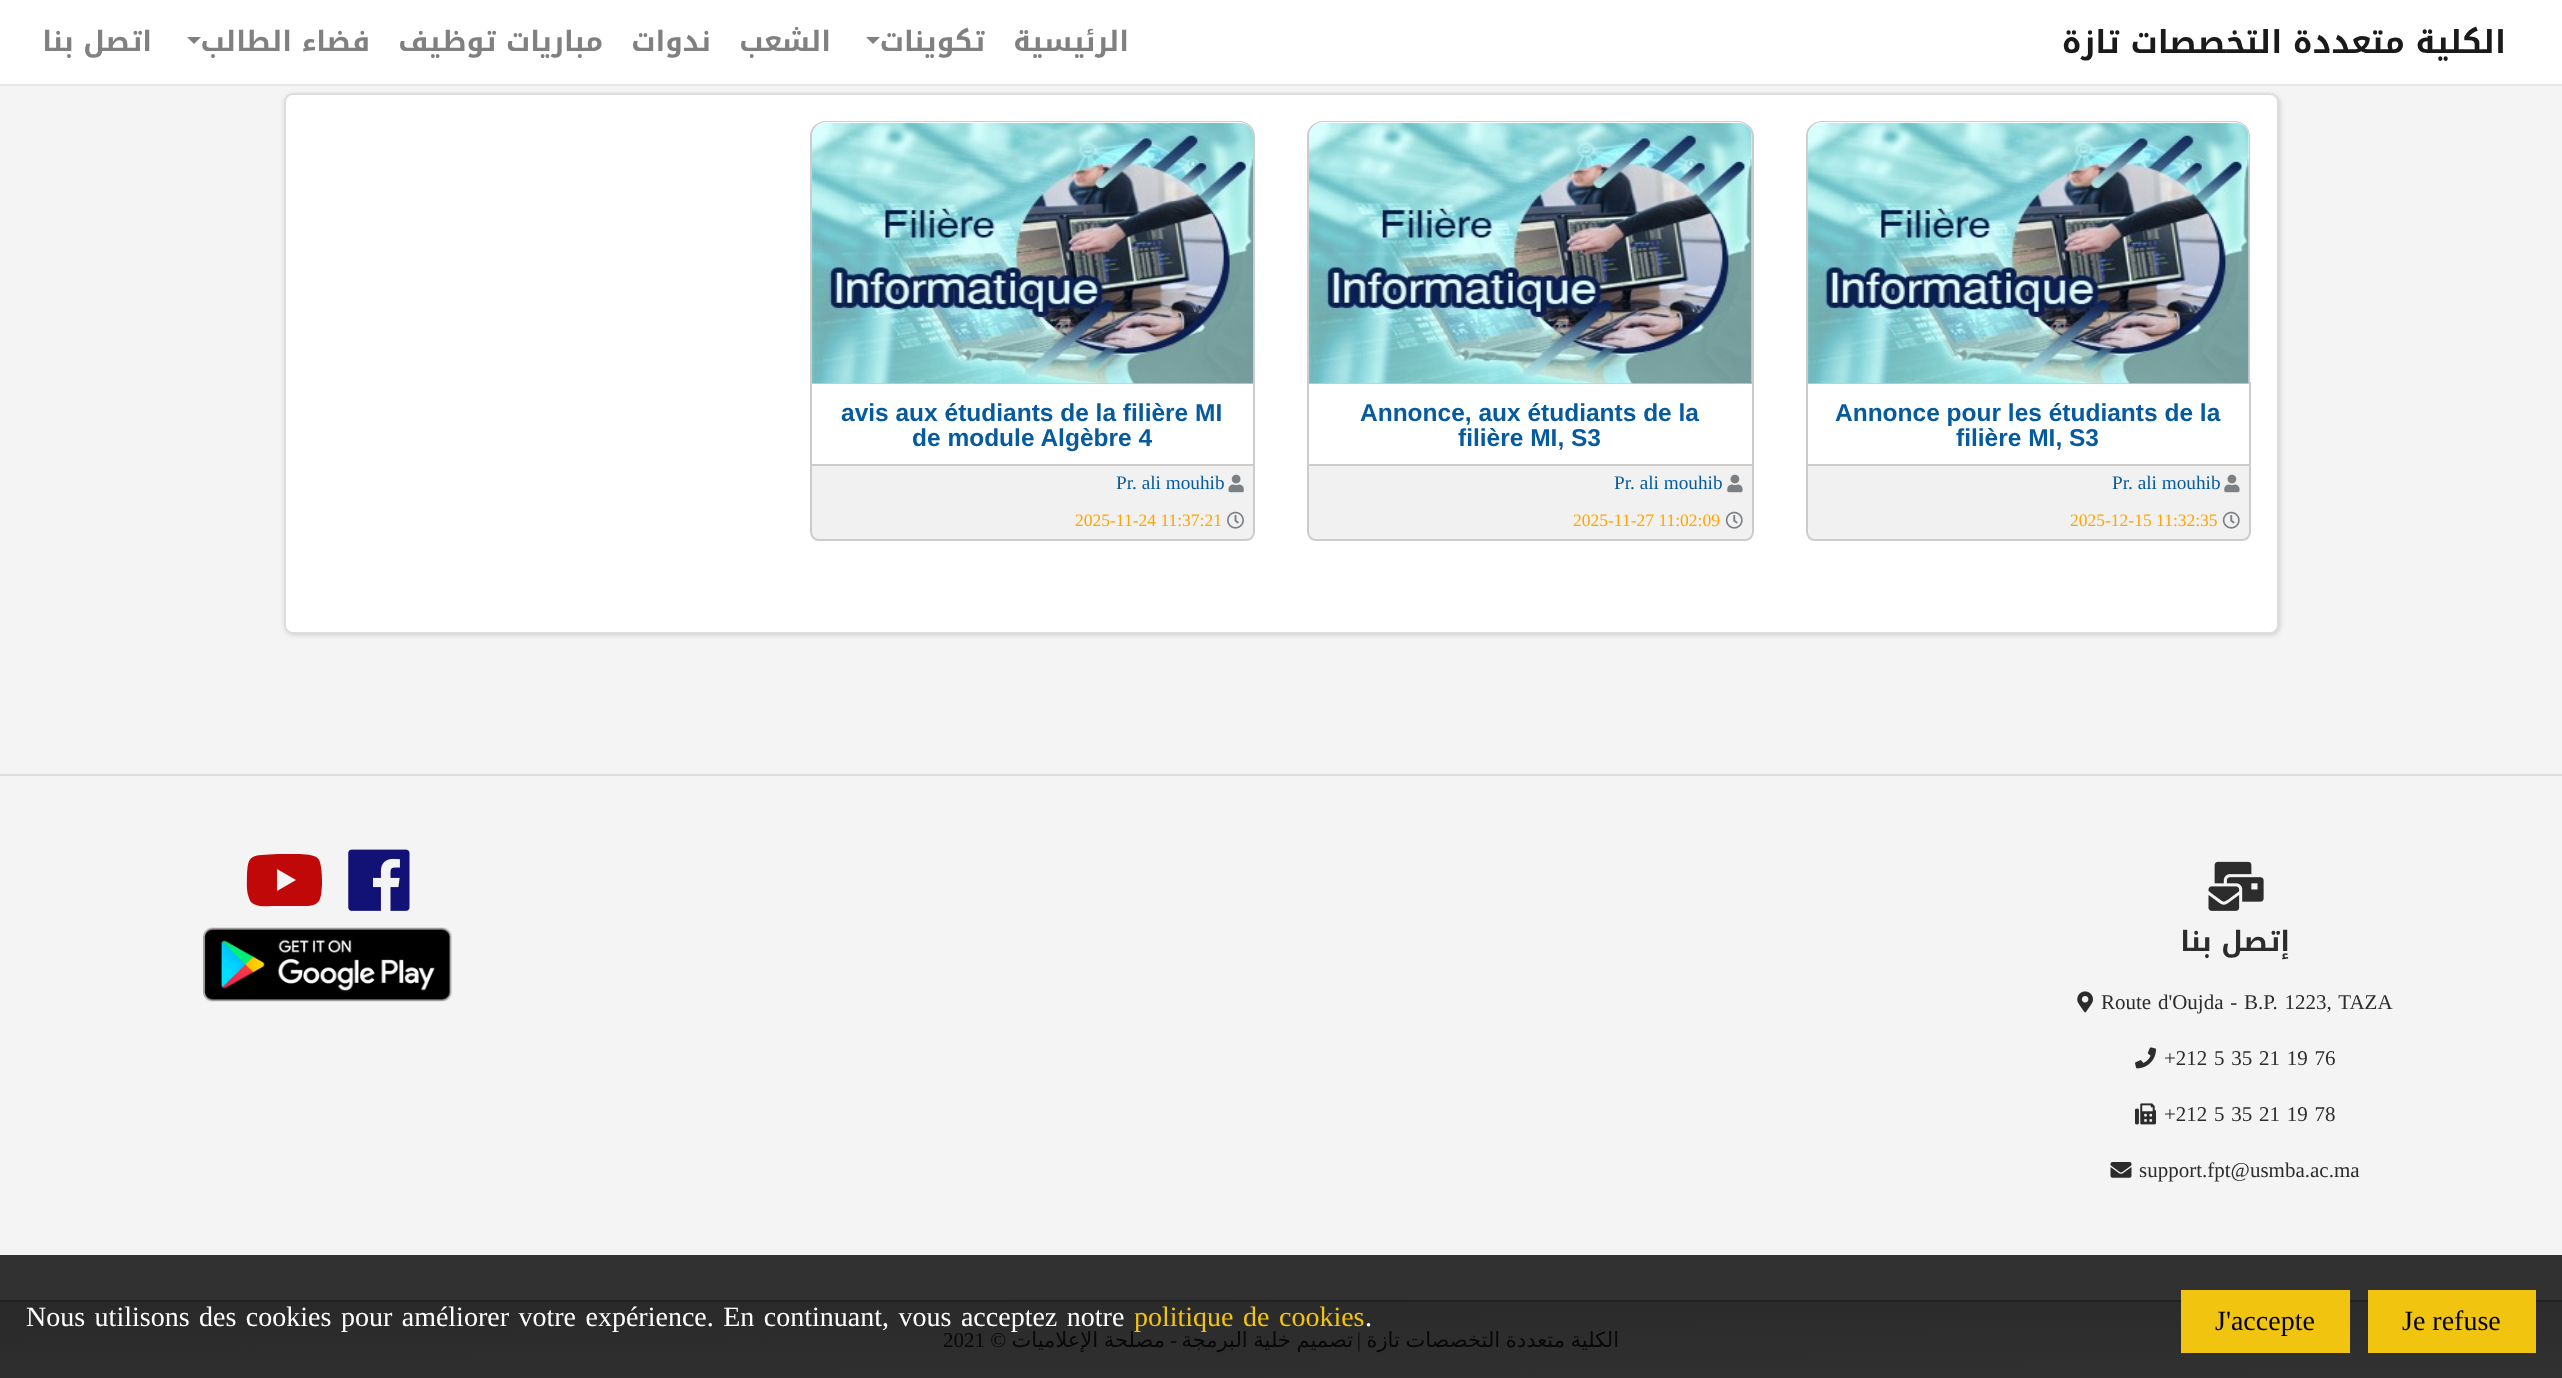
<svg xmlns="http://www.w3.org/2000/svg" width="2562" height="1378" viewBox="0 0 2562 1378">
  <defs>
    <linearGradient id="g1" gradientUnits="userSpaceOnUse" x1="1280" y1="1280" x2="1282" y2="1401"><stop offset="0" stop-color="rgb(42,41,41)"/><stop offset="1" stop-color="rgb(49,49,49)"/></linearGradient>
  </defs>
  <rect width="100%" height="100%" fill="rgb(245,244,244)"/>
  <rect x="0" y="1255" width="2562" height="45" fill="rgb(49,49,49)"/>
  <rect x="0" y="0" width="2562" height="84" fill="rgb(255,255,255)"/>
  <rect x="0" y="84" width="2562" height="2" fill="rgb(233,231,231)"/>
  <text x="152" y="51" font-family="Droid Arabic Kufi" font-size="28" font-weight="bold" direction="rtl" fill="rgb(128,128,128)">اتصل بنا</text>
  <path d="M187 37H201L194 44Z" fill="rgb(128,128,128)"/>
  <g font-family="Droid Arabic Kufi" font-size="28" font-weight="bold" direction="rtl" fill="rgb(128,128,128)">
    <text x="370" y="51">فضاء الطالب</text>
    <text x="603" y="51">مباريات توظيف</text>
    <text x="711" y="51">ندوات</text>
    <text x="831" y="51">الشعب</text>
  </g>
  <path d="M866 37H880L873 44Z" fill="rgb(128,128,128)"/>
  <g font-family="Droid Arabic Kufi" font-size="28" font-weight="bold" direction="rtl" fill="rgb(128,128,128)">
    <text x="985" y="51">تكوينات</text>
    <text x="1129" y="51">الرئيسية</text>
  </g>
  <text x="2506" y="53" font-family="Droid Arabic Kufi" font-size="31.5" font-weight="bold" direction="rtl" fill="rgb(26,26,26)">الكلية متعددة التخصصات تازة</text>
  <rect x="285" y="95" width="1995" height="540" rx="9" fill="rgb(204,204,204)" filter="blur(2.5px)"/>
  <rect x="285" y="94" width="1993" height="539" rx="8" fill="rgb(255,255,255)" stroke="rgb(221,221,221)" stroke-width="2"/>
  <rect x="811" y="383" width="443" height="85" fill="none" stroke="rgb(204,204,204)" stroke-width="2"/>
  <path d="M826 121H1239C1248 121 1255 128 1255 136V383H810V136C810 128 817 121 826 121ZM826 122H1239C1247 122 1253 129 1253 136V383H812V136C812 129 818 122 826 122Z" fill="rgb(204,204,204)" fill-rule="evenodd"/>
  <image x="812" y="122" width="441" height="262" href="pic1.png"/>
  <g font-family="Liberation Sans" font-size="24.5" font-weight="bold" fill="rgb(6,90,158)">
    <text x="841" y="421">avis aux étudiants de la filière MI</text>
    <text x="912" y="446">de module Algèbre 4</text>
  </g>
  <path d="M811 465H1254V532C1254 536.5 1250.5 540 1246 540H819C814.5 540 811 536.5 811 532Z" fill="rgb(241,241,241)" stroke="rgb(204,204,204)" stroke-width="2"/>
  <text x="1116" y="489" font-family="Liberation Serif" font-size="19.25" fill="rgb(6,90,158)">Pr. ali mouhib</text>
  <image x="1228" y="474" width="16" height="19" href="pic2.png"/>
  <text x="1075" y="526" font-family="Liberation Serif" font-size="17.5" fill="rgb(255,165,0)">2025-11-24 11:37:21</text>
  <image x="1227" y="511" width="17" height="18" href="pic3.png"/>
  <rect x="1308" y="383" width="445" height="85" fill="none" stroke="rgb(204,204,204)" stroke-width="2"/>
  <path d="M1323 121H1738C1746 121 1754 128 1754 136V383H1307V136C1307 128 1314 121 1323 121ZM1323 122H1738C1745 122 1752 129 1752 136V383H1309V136C1309 129 1315 122 1323 122Z" fill="rgb(204,204,204)" fill-rule="evenodd"/>
  <image x="1309" y="122" width="443" height="262" href="pic4.png"/>
  <g font-family="Liberation Sans" font-size="24.5" font-weight="bold" fill="rgb(6,90,158)">
    <text x="1360" y="421">Annonce, aux étudiants de la</text>
    <text x="1458" y="446">filière MI, S3</text>
  </g>
  <path d="M1308 465H1753V532C1753 536.5 1749.5 540 1745 540H1316C1311.5 540 1308 536.5 1308 532Z" fill="rgb(241,241,241)" stroke="rgb(204,204,204)" stroke-width="2"/>
  <text x="1614" y="489" font-family="Liberation Serif" font-size="19.25" fill="rgb(6,90,158)">Pr. ali mouhib</text>
  <image x="1727" y="474" width="16" height="19" href="pic5.png"/>
  <text x="1573" y="526" font-family="Liberation Serif" font-size="17.5" fill="rgb(255,165,0)">2025-11-27 11:02:09</text>
  <image x="1725" y="511" width="18" height="18" href="pic6.png"/>
  <rect x="1807" y="383" width="443" height="85" fill="none" stroke="rgb(204,204,204)" stroke-width="2"/>
  <path d="M1822 121H2235C2243 121 2250 128 2250 136V383H1806V136C1806 128 1813 121 1822 121ZM1822 122H2235C2242 122 2249 129 2249 136V383H1808V136C1808 129 1814 122 1822 122Z" fill="rgb(204,204,204)" fill-rule="evenodd"/>
  <image x="1807" y="122" width="442" height="262" href="pic7.png"/>
  <g font-family="Liberation Sans" font-size="24.5" font-weight="bold" fill="rgb(6,90,158)">
    <text x="1835" y="421">Annonce pour les étudiants de la</text>
    <text x="1956" y="446">filière MI, S3</text>
  </g>
  <path d="M1807 465H2250V532C2250 536.5 2246.5 540 2242 540H1815C1810.5 540 1807 536.5 1807 532Z" fill="rgb(241,241,241)" stroke="rgb(204,204,204)" stroke-width="2"/>
  <text x="2112" y="489" font-family="Liberation Serif" font-size="19.25" fill="rgb(6,90,158)">Pr. ali mouhib</text>
  <image x="2224" y="474" width="16" height="19" href="pic5.png"/>
  <text x="2070" y="526" font-family="Liberation Serif" font-size="17.5" fill="rgb(255,165,0)">2025-12-15 11:32:35</text>
  <image x="2222" y="511" width="18" height="18" href="pic6.png"/>
  <rect x="0" y="774" width="2562" height="2" fill="rgb(221,221,221)"/>
  <path d="M320 862C318 854 307 855 300 854H278L261 855C248 856 248 862 247 874C247 882 246 891 249 898C251 908 267 906 274 906H308C321 905 321 898 322 885C322 878 322 870 320 862ZM277 891V869L296 880Z" fill="rgb(193,8,8)"/>
  <image x="348" y="849" width="62" height="62" href="pic8.png"/>
  <image x="203" y="927" width="249" height="75" href="pic9.png"/>
  <image x="2208" y="861" width="56" height="50" href="pic10.png"/>
  <text x="2290" y="951" font-family="Droid Arabic Kufi" font-size="28" font-weight="bold" direction="rtl" fill="rgb(44,44,44)">إتصل بنا</text>
  <image x="2077" y="991" width="16" height="22" href="pic11.png"/>
  <text x="2101" y="1009" word-spacing="1.5" font-family="Liberation Serif" font-size="21" fill="rgb(44,44,44)">Route d'Oujda - B.P. 1223, TAZA</text>
  <image x="2135" y="1047" width="21" height="22" href="pic12.png"/>
  <text x="2164" y="1065" word-spacing="1.5" font-family="Liberation Serif" font-size="21" fill="rgb(44,44,44)">+212 5 35 21 19 76</text>
  <image x="2135" y="1103" width="21" height="22" href="pic13.png"/>
  <text x="2164" y="1121" word-spacing="1.5" font-family="Liberation Serif" font-size="21" fill="rgb(44,44,44)">+212 5 35 21 19 78</text>
  <image x="2110" y="1162" width="22" height="16" href="pic14.png"/>
  <text x="2139" y="1177" font-family="Liberation Serif" font-size="21" fill="rgb(44,44,44)">support.fpt@usmba.ac.ma</text>
  <rect x="0" y="1302" width="2562" height="76" fill="url(#g1)"/>
  <rect x="0" y="1300" width="2562" height="2" fill="rgb(34,34,34)"/>
  <text x="943" y="1347" font-family="Liberation Serif" font-size="21" fill="rgb(8,8,8)">2021 ©</text>
  <text x="1165" y="1347" word-spacing="-1" font-family="DejaVu Sans" font-size="21" direction="rtl" fill="rgb(8,8,8)">مصلحة الإعلاميات</text>
  <text x="1177" y="1347" font-family="Liberation Serif" font-size="21" direction="rtl" fill="rgb(8,8,8)">-</text>
  <text x="1353" y="1347" word-spacing="-1" font-family="DejaVu Sans" font-size="21" direction="rtl" fill="rgb(8,8,8)">تصميم خلية البرمجة</text>
  <text x="1361" y="1347" font-family="Liberation Serif" font-size="21" direction="rtl" fill="rgb(8,8,8)">|</text>
  <text x="1619" y="1347" word-spacing="-1" font-family="DejaVu Sans" font-size="21" direction="rtl" fill="rgb(8,8,8)">الكلية متعددة التخصصات تازة</text>
  <text x="26" y="1326" word-spacing="2.5" font-family="Liberation Serif" font-size="28" fill="rgb(255,255,255)">Nous utilisons des cookies pour améliorer votre expérience. En continuant, vous acceptez notre</text>
  <text x="1134" y="1326" word-spacing="2.5" font-family="Liberation Serif" font-size="28" fill="rgb(241,196,15)">politique de cookies</text>
  <text x="1365" y="1326" font-family="Liberation Serif" font-size="28" fill="rgb(255,255,255)">.</text>
  <rect x="2181" y="1290" width="169" height="63" fill="rgb(241,196,15)"/>
  <text x="2215" y="1330" font-family="Liberation Serif" font-size="28" fill="rgb(0,0,0)">J'accepte</text>
  <rect x="2368" y="1290" width="168" height="63" fill="rgb(241,196,15)"/>
  <text x="2402" y="1330" font-family="Liberation Serif" font-size="28" fill="rgb(0,0,0)">Je refuse</text>
</svg>
